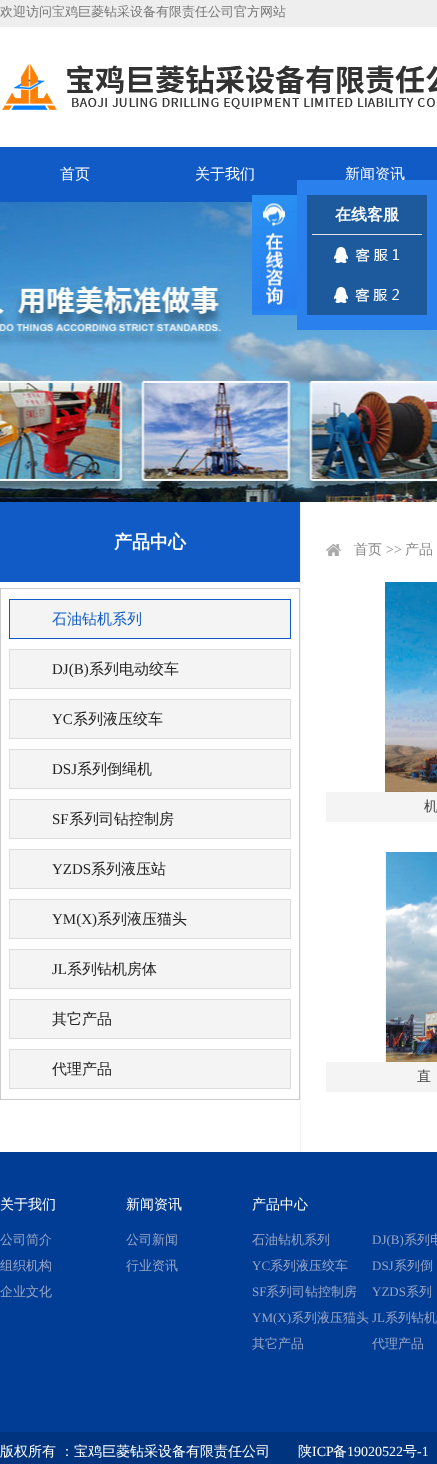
<svg xmlns="http://www.w3.org/2000/svg" width="437" height="1464" viewBox="0 0 437 1464">
  <rect width="100%" height="100%" fill="rgb(255,255,255)"/>
  <rect x="0" y="0" width="437" height="27" fill="rgb(238,238,238)"/>
  <text x="0" y="16" font-family="WenQuanYi Zen Hei" font-size="13" font-weight="500" fill="rgb(119,119,119)">欢迎访问宝鸡巨菱钻采设备有限责任公司官方网站</text>
  <image x="2" y="64" width="435" height="46" href="pic1.png"/>
  <rect x="0" y="147" width="437" height="55" fill="rgb(17,91,199)"/>
  <g font-family="WenQuanYi Zen Hei" font-size="15" font-weight="500" fill="rgb(255,255,255)">
    <text x="60" y="179">首页</text>
    <text x="195" y="179">关于我们</text>
    <text x="345" y="179">新闻资讯</text>
  </g>
  <image x="0" y="202" width="437" height="300" href="pic2.png"/>
  <image x="252" y="195" width="45" height="120" href="pic3.png"/>
  <rect x="297" y="180" width="140" height="150" fill="rgb(42,129,237)"/>
  <rect x="307" y="195" width="120" height="120" fill="rgb(28,89,157)"/>
  <rect x="312" y="234" width="110" height="1" fill="rgb(229,229,229)"/>
  <text x="335" y="220" font-family="WenQuanYi Zen Hei" font-size="16" font-weight="bold" fill="rgb(255,255,255)">在线客服</text>
  <image x="334" y="247" width="66" height="16" href="pic4.png"/>
  <image x="334" y="287" width="65" height="16" href="pic5.png"/>
  <rect x="0" y="502" width="300" height="80" fill="rgb(17,91,199)"/>
  <text x="114" y="548" font-family="WenQuanYi Zen Hei" font-size="18" font-weight="bold" fill="rgb(255,255,255)">产品中心</text>
  <rect x="0.5" y="588.5" width="299" height="511" fill="none" stroke="rgb(203,203,203)"/>
  <rect x="9.5" y="599.5" width="281" height="39" fill="rgb(244,244,244)" stroke="rgb(17,91,199)"/>
  <text x="52" y="624" font-family="WenQuanYi Zen Hei" font-size="15" font-weight="500" fill="rgb(17,91,199)">石油钻机系列</text>
  <rect x="9.5" y="649.5" width="281" height="39" fill="rgb(244,244,244)" stroke="rgb(220,220,220)"/>
  <text x="52" y="674" font-family="Liberation Serif" font-size="15" fill="rgb(34,34,34)">DJ(B)</text>
  <text x="89" y="674" font-family="WenQuanYi Zen Hei" font-size="15" font-weight="500" fill="rgb(34,34,34)">系列电动绞车</text>
  <rect x="9.5" y="699.5" width="281" height="39" fill="rgb(244,244,244)" stroke="rgb(220,220,220)"/>
  <text x="52" y="724" font-family="Liberation Serif" font-size="15" fill="rgb(34,34,34)">YC</text>
  <text x="73" y="724" font-family="WenQuanYi Zen Hei" font-size="15" font-weight="500" fill="rgb(34,34,34)">系列液压绞车</text>
  <rect x="9.5" y="749.5" width="281" height="39" fill="rgb(244,244,244)" stroke="rgb(220,220,220)"/>
  <text x="52" y="774" font-family="Liberation Serif" font-size="15" fill="rgb(34,34,34)">DSJ</text>
  <text x="77" y="774" font-family="WenQuanYi Zen Hei" font-size="15" font-weight="500" fill="rgb(34,34,34)">系列倒绳机</text>
  <rect x="9.5" y="799.5" width="281" height="39" fill="rgb(244,244,244)" stroke="rgb(220,220,220)"/>
  <text x="52" y="824" font-family="Liberation Serif" font-size="15" fill="rgb(34,34,34)">SF</text>
  <text x="69" y="824" font-family="WenQuanYi Zen Hei" font-size="15" font-weight="500" fill="rgb(34,34,34)">系列司钻控制房</text>
  <rect x="9.5" y="849.5" width="281" height="39" fill="rgb(244,244,244)" stroke="rgb(220,220,220)"/>
  <text x="52" y="874" font-family="Liberation Serif" font-size="15" fill="rgb(34,34,34)">YZDS</text>
  <text x="91" y="874" font-family="WenQuanYi Zen Hei" font-size="15" font-weight="500" fill="rgb(34,34,34)">系列液压站</text>
  <rect x="9.5" y="899.5" width="281" height="39" fill="rgb(244,244,244)" stroke="rgb(220,220,220)"/>
  <text x="52" y="924" font-family="Liberation Serif" font-size="15" fill="rgb(34,34,34)">YM(X)</text>
  <text x="97" y="924" font-family="WenQuanYi Zen Hei" font-size="15" font-weight="500" fill="rgb(34,34,34)">系列液压猫头</text>
  <rect x="9.5" y="949.5" width="281" height="39" fill="rgb(244,244,244)" stroke="rgb(220,220,220)"/>
  <text x="52" y="974" font-family="Liberation Serif" font-size="15" fill="rgb(34,34,34)">JL</text>
  <text x="67" y="974" font-family="WenQuanYi Zen Hei" font-size="15" font-weight="500" fill="rgb(34,34,34)">系列钻机房体</text>
  <rect x="9.5" y="999.5" width="281" height="39" fill="rgb(244,244,244)" stroke="rgb(220,220,220)"/>
  <text x="52" y="1024" font-family="WenQuanYi Zen Hei" font-size="15" font-weight="500" fill="rgb(34,34,34)">其它产品</text>
  <rect x="9.5" y="1049.5" width="281" height="39" fill="rgb(244,244,244)" stroke="rgb(220,220,220)"/>
  <text x="52" y="1074" font-family="WenQuanYi Zen Hei" font-size="15" font-weight="500" fill="rgb(34,34,34)">代理产品</text>
  <rect x="300" y="502" width="1" height="650" fill="rgb(241,241,241)"/>
  <image x="326" y="544" width="15" height="12" href="pic6.png"/>
  <text x="354" y="554" font-family="WenQuanYi Zen Hei" font-size="14" font-weight="500" fill="rgb(136,136,136)">首页</text>
  <text x="386" y="554" font-family="Liberation Serif" font-size="14" fill="rgb(136,136,136)">&gt;&gt;</text>
  <text x="405" y="554" font-family="WenQuanYi Zen Hei" font-size="14" font-weight="500" fill="rgb(136,136,136)">产品</text>
  <image x="384" y="582" width="53" height="210" href="pic7.png"/>
  <rect x="326" y="792" width="111" height="30" fill="rgb(244,244,244)"/>
  <text x="424" y="811" font-family="WenQuanYi Zen Hei" font-size="14" font-weight="500" fill="rgb(68,68,68)">机</text>
  <image x="385" y="852" width="52" height="210" href="pic8.png"/>
  <rect x="326" y="1062" width="111" height="30" fill="rgb(244,244,244)"/>
  <text x="417" y="1081" font-family="WenQuanYi Zen Hei" font-size="14" font-weight="500" fill="rgb(68,68,68)">直</text>
  <rect x="0" y="1152" width="437" height="280" fill="rgb(1,61,149)"/>
  <text x="0" y="1209" font-family="WenQuanYi Zen Hei" font-size="14" font-weight="500" fill="rgb(255,255,255)">关于我们</text>
  <g font-family="WenQuanYi Zen Hei" font-size="13" font-weight="500" fill="rgb(152,165,197)">
    <text x="0" y="1244">公司简介</text>
    <text x="0" y="1270">组织机构</text>
    <text x="0" y="1296">企业文化</text>
  </g>
  <text x="126" y="1209" font-family="WenQuanYi Zen Hei" font-size="14" font-weight="500" fill="rgb(255,255,255)">新闻资讯</text>
  <g font-family="WenQuanYi Zen Hei" font-size="13" font-weight="500" fill="rgb(152,165,197)">
    <text x="126" y="1244">公司新闻</text>
    <text x="126" y="1270">行业资讯</text>
  </g>
  <text x="252" y="1209" font-family="WenQuanYi Zen Hei" font-size="14" font-weight="500" fill="rgb(255,255,255)">产品中心</text>
  <text x="252" y="1244" font-family="WenQuanYi Zen Hei" font-size="13" font-weight="500" fill="rgb(152,165,197)">石油钻机系列</text>
  <text x="372" y="1244" font-family="Liberation Serif" font-size="13" fill="rgb(152,165,197)">DJ(B)</text>
  <text x="404" y="1244" font-family="WenQuanYi Zen Hei" font-size="13" font-weight="500" fill="rgb(152,165,197)">系列电</text>
  <text x="252" y="1270" font-family="Liberation Serif" font-size="13" fill="rgb(152,165,197)">YC</text>
  <text x="270" y="1270" font-family="WenQuanYi Zen Hei" font-size="13" font-weight="500" fill="rgb(152,165,197)">系列液压绞车</text>
  <text x="372" y="1270" font-family="Liberation Serif" font-size="13" fill="rgb(152,165,197)">DSJ</text>
  <text x="394" y="1270" font-family="WenQuanYi Zen Hei" font-size="13" font-weight="500" fill="rgb(152,165,197)">系列倒</text>
  <text x="252" y="1296" font-family="Liberation Serif" font-size="13" fill="rgb(152,165,197)">SF</text>
  <text x="266" y="1296" font-family="WenQuanYi Zen Hei" font-size="13" font-weight="500" fill="rgb(152,165,197)">系列司钻控制房</text>
  <text x="372" y="1296" font-family="Liberation Serif" font-size="13" fill="rgb(152,165,197)">YZDS</text>
  <text x="406" y="1296" font-family="WenQuanYi Zen Hei" font-size="13" font-weight="500" fill="rgb(152,165,197)">系列</text>
  <text x="252" y="1322" font-family="Liberation Serif" font-size="13" fill="rgb(152,165,197)">YM(X)</text>
  <text x="291" y="1322" font-family="WenQuanYi Zen Hei" font-size="13" font-weight="500" fill="rgb(152,165,197)">系列液压猫头</text>
  <text x="372" y="1322" font-family="Liberation Serif" font-size="13" fill="rgb(152,165,197)">JL</text>
  <g font-family="WenQuanYi Zen Hei" font-size="13" font-weight="500" fill="rgb(152,165,197)">
    <text x="385" y="1322">系列钻机</text>
    <text x="252" y="1348">其它产品</text>
    <text x="372" y="1348">代理产品</text>
  </g>
  <rect x="0" y="1432" width="437" height="32" fill="rgb(1,52,127)"/>
  <g font-family="WenQuanYi Zen Hei" font-size="14" font-weight="500" fill="rgb(255,255,255)">
    <text x="0" y="1456">版权所有</text>
    <text x="60" y="1456">：宝鸡巨菱钻采设备有限责任公司</text>
    <text x="298" y="1456">陕</text>
  </g>
  <text x="312" y="1456" font-family="Liberation Serif" font-size="14" fill="rgb(255,255,255)">ICP</text>
  <text x="333" y="1456" font-family="WenQuanYi Zen Hei" font-size="14" font-weight="500" fill="rgb(255,255,255)">备</text>
  <text x="347" y="1456" font-family="Liberation Serif" font-size="14" fill="rgb(255,255,255)">19020522</text>
  <text x="403" y="1456" font-family="WenQuanYi Zen Hei" font-size="14" font-weight="500" fill="rgb(255,255,255)">号</text>
  <text x="417" y="1456" font-family="Liberation Serif" font-size="14" fill="rgb(255,255,255)">-1</text>
</svg>
